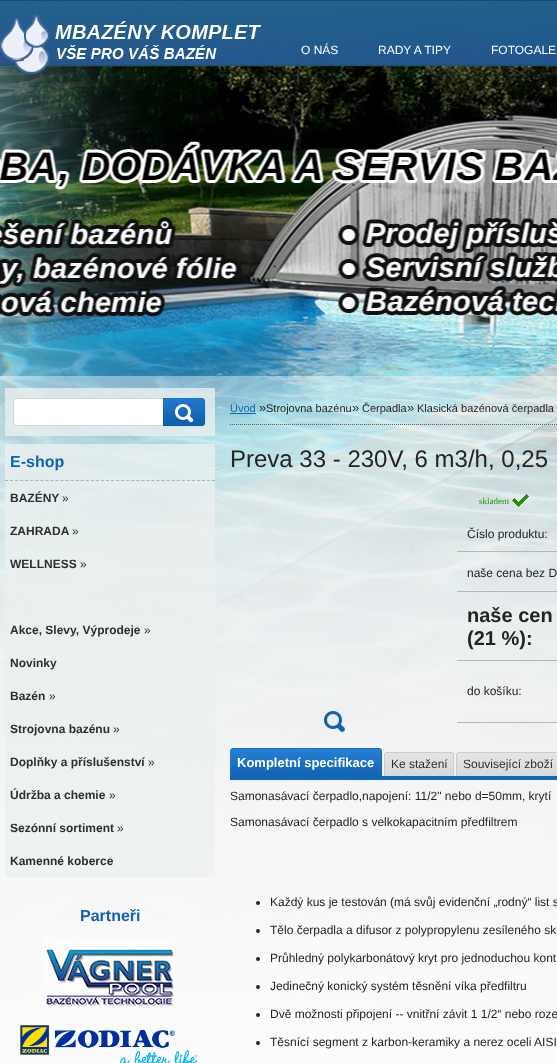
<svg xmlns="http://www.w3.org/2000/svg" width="557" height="1063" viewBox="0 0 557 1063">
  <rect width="100%" height="100%" fill="rgb(255,255,255)"/>
  <image x="0" y="0" width="557" height="1063" href="pic1.png"/>
  <image x="0" y="14" width="262" height="60" href="pic2.png"/>
  <g font-family="Liberation Sans" font-size="12" fill="rgb(255,255,255)">
    <text x="301" y="54">O NÁS</text>
    <text x="378" y="54">RADY A TIPY</text>
    <text x="491" y="54">FOTOGALE</text>
  </g>
  <rect x="5" y="388" width="210" height="48" fill="rgba(235,240,239,0.79)"/>
  <image x="13" y="398" width="150" height="28" href="pic3.png"/>
  <image x="163" y="398" width="43" height="28" href="pic4.png"/>
  <rect x="5" y="444" width="210" height="433" fill="rgba(235,240,239,0.79)"/>
  <path d="M5 480.5H215" fill="none" stroke="rgb(171,178,182)" stroke-dasharray="3 2.05"/>
  <text x="10" y="467" font-family="Liberation Sans" font-size="16" font-weight="bold" fill="rgb(17,99,177)">E-shop</text>
  <text x="10" y="502" font-family="Liberation Sans" font-size="12" font-weight="bold" fill="rgb(46,47,48)">BAZÉNY</text>
  <text x="62" y="502" font-family="Liberation Sans" font-size="12" fill="rgb(46,47,48)">»</text>
  <text x="10" y="535" font-family="Liberation Sans" font-size="12" font-weight="bold" fill="rgb(46,47,48)">ZAHRADA</text>
  <text x="72" y="535" font-family="Liberation Sans" font-size="12" fill="rgb(46,47,48)">»</text>
  <text x="10" y="568" font-family="Liberation Sans" font-size="12" font-weight="bold" fill="rgb(46,47,48)">WELLNESS</text>
  <text x="80" y="568" font-family="Liberation Sans" font-size="12" fill="rgb(46,47,48)">»</text>
  <text x="10" y="634" font-family="Liberation Sans" font-size="12" font-weight="bold" fill="rgb(46,47,48)">Akce, Slevy, Výprodeje</text>
  <text x="144" y="634" font-family="Liberation Sans" font-size="12" fill="rgb(46,47,48)">»</text>
  <g font-family="Liberation Sans" font-size="12" font-weight="bold" fill="rgb(46,47,48)">
    <text x="10" y="667">Novinky</text>
    <text x="10" y="700">Bazén</text>
  </g>
  <text x="49" y="700" font-family="Liberation Sans" font-size="12" fill="rgb(46,47,48)">»</text>
  <text x="10" y="733" font-family="Liberation Sans" font-size="12" font-weight="bold" fill="rgb(46,47,48)">Strojovna bazénu</text>
  <text x="113" y="733" font-family="Liberation Sans" font-size="12" fill="rgb(46,47,48)">»</text>
  <text x="10" y="766" font-family="Liberation Sans" font-size="12" font-weight="bold" fill="rgb(46,47,48)">Doplňky a příslušenství</text>
  <text x="148" y="766" font-family="Liberation Sans" font-size="12" fill="rgb(46,47,48)">»</text>
  <text x="10" y="799" font-family="Liberation Sans" font-size="12" font-weight="bold" fill="rgb(46,47,48)">Údržba a chemie</text>
  <text x="109" y="799" font-family="Liberation Sans" font-size="12" fill="rgb(46,47,48)">»</text>
  <text x="10" y="832" font-family="Liberation Sans" font-size="12" font-weight="bold" fill="rgb(46,47,48)">Sezónní sortiment</text>
  <text x="117" y="832" font-family="Liberation Sans" font-size="12" fill="rgb(46,47,48)">»</text>
  <text x="10" y="865" font-family="Liberation Sans" font-size="12" font-weight="bold" fill="rgb(46,47,48)">Kamenné koberce</text>
  <text x="80" y="921" font-family="Liberation Sans" font-size="16" font-weight="bold" fill="rgb(17,99,177)">Partneři</text>
  <image x="45" y="938" width="130" height="69" href="pic5.png"/>
  <image x="20" y="1025" width="178" height="38" href="pic6.png"/>
  <path d="M230 424.5H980" fill="none" stroke="rgb(92,92,92)" stroke-dasharray="1 1"/>
  <text x="230" y="412" font-family="Liberation Sans" font-size="11" fill="rgb(17,99,177)">Úvod</text>
  <rect x="230" y="413" width="26" height="1" fill="rgb(17,99,177)"/>
  <text x="259" y="412" font-family="Liberation Sans" font-size="13" fill="rgb(36,36,36)">»</text>
  <text x="266" y="412" font-family="Liberation Sans" font-size="11" fill="rgb(36,36,36)">Strojovna bazénu</text>
  <text x="352" y="412" font-family="Liberation Sans" font-size="13" fill="rgb(36,36,36)">»</text>
  <text x="362" y="412" font-family="Liberation Sans" font-size="11" fill="rgb(36,36,36)">Čerpadla</text>
  <text x="407" y="412" font-family="Liberation Sans" font-size="13" fill="rgb(36,36,36)">»</text>
  <text x="417" y="412" font-family="Liberation Sans" font-size="11" fill="rgb(36,36,36)">Klasická bazénová čerpadla</text>
  <text x="230" y="467" font-family="Liberation Sans" font-size="24" fill="rgb(36,36,36)">Preva 33 - 230V, 6 m3/h, 0,25</text>
  <image x="512" y="494" width="17" height="13" href="pic7.png"/>
  <text x="479" y="504" font-family="Liberation Serif" font-size="9" fill="rgb(36,144,7)">skladem</text>
  <rect x="457" y="551" width="100" height="1" fill="rgb(181,183,182)"/>
  <text x="467" y="538" font-family="Liberation Sans" font-size="12" fill="rgb(36,36,36)">Číslo produktu:</text>
  <rect x="457" y="591" width="100" height="1" fill="rgb(181,183,182)"/>
  <text x="467" y="577" font-family="Liberation Sans" font-size="12" fill="rgb(36,36,36)">naše cena bez D</text>
  <rect x="457" y="660" width="100" height="1" fill="rgb(181,183,182)"/>
  <g font-family="Liberation Sans" font-size="20" font-weight="bold" fill="rgb(36,36,36)">
    <text>
      <tspan x="467" y="622">naše cen</tspan>
      <tspan x="467" y="645">(21 %):</tspan>
    </text>
  </g>
  <rect x="457" y="722" width="100" height="1" fill="rgb(181,183,182)"/>
  <text x="467" y="695" font-family="Liberation Sans" font-size="12" fill="rgb(36,36,36)">do košíku:</text>
  <image x="324" y="711" width="21" height="21" href="pic8.png"/>
  <image x="230" y="748" width="150" height="28" href="pic9.png"/>
  <image x="232" y="748" width="150" height="28" href="pic10.png"/>
  <text x="237" y="767" font-family="Liberation Sans" font-size="13" font-weight="bold" fill="rgb(255,255,255)">Kompletní specifikace</text>
  <image x="384" y="752" width="68" height="24" href="pic11.png"/>
  <image x="386" y="752" width="68" height="24" href="pic12.png"/>
  <text x="391" y="768" font-family="Liberation Sans" font-size="12" fill="rgb(46,47,48)">Ke stažení</text>
  <image x="456" y="752" width="101" height="24" href="pic13.png"/>
  <rect x="458" y="752" width="1" height="1" fill="rgb(201,203,202)"/>
  <text x="463" y="768" font-family="Liberation Sans" font-size="12" fill="rgb(46,47,48)">Související zboží</text>
  <rect x="230" y="776" width="327" height="4" fill="rgb(19,103,184)"/>
  <g font-family="Liberation Sans" font-size="12" fill="rgb(36,36,36)">
    <text x="230" y="800">Samonasávací čerpadlo,napojení: 11/2" nebo d=50mm, krytí</text>
    <text x="230" y="826">Samonasávací čerpadlo s velkokapacitním předfiltrem</text>
  </g>
  <circle cx="258" cy="903" r="2" fill="rgb(36,36,36)"/>
  <text x="270" y="906" font-family="Liberation Sans" font-size="12" fill="rgb(36,36,36)">Každý kus je testován (má svůj evidenční „rodný“ list s</text>
  <circle cx="258" cy="931" r="2" fill="rgb(36,36,36)"/>
  <text x="270" y="934" font-family="Liberation Sans" font-size="12" fill="rgb(36,36,36)">Tělo čerpadla a difusor z polypropylenu zesíleného sk</text>
  <circle cx="258" cy="959" r="2" fill="rgb(36,36,36)"/>
  <text x="270" y="962" font-family="Liberation Sans" font-size="12" fill="rgb(36,36,36)">Průhledný polykarbonátový kryt pro jednoduchou kont</text>
  <circle cx="258" cy="987" r="2" fill="rgb(36,36,36)"/>
  <text x="270" y="990" font-family="Liberation Sans" font-size="12" fill="rgb(36,36,36)">Jedinečný konický systém těsnění víka předfiltru</text>
  <circle cx="258" cy="1015" r="2" fill="rgb(36,36,36)"/>
  <text x="270" y="1018" font-family="Liberation Sans" font-size="12" fill="rgb(36,36,36)">Dvě možnosti připojení -- vnitřní závit 1 1/2“ nebo roze</text>
  <circle cx="258" cy="1043" r="2" fill="rgb(36,36,36)"/>
  <text x="270" y="1046" font-family="Liberation Sans" font-size="12" fill="rgb(36,36,36)">Těsnící segment z karbon-keramiky a nerez oceli AISI</text>
</svg>
